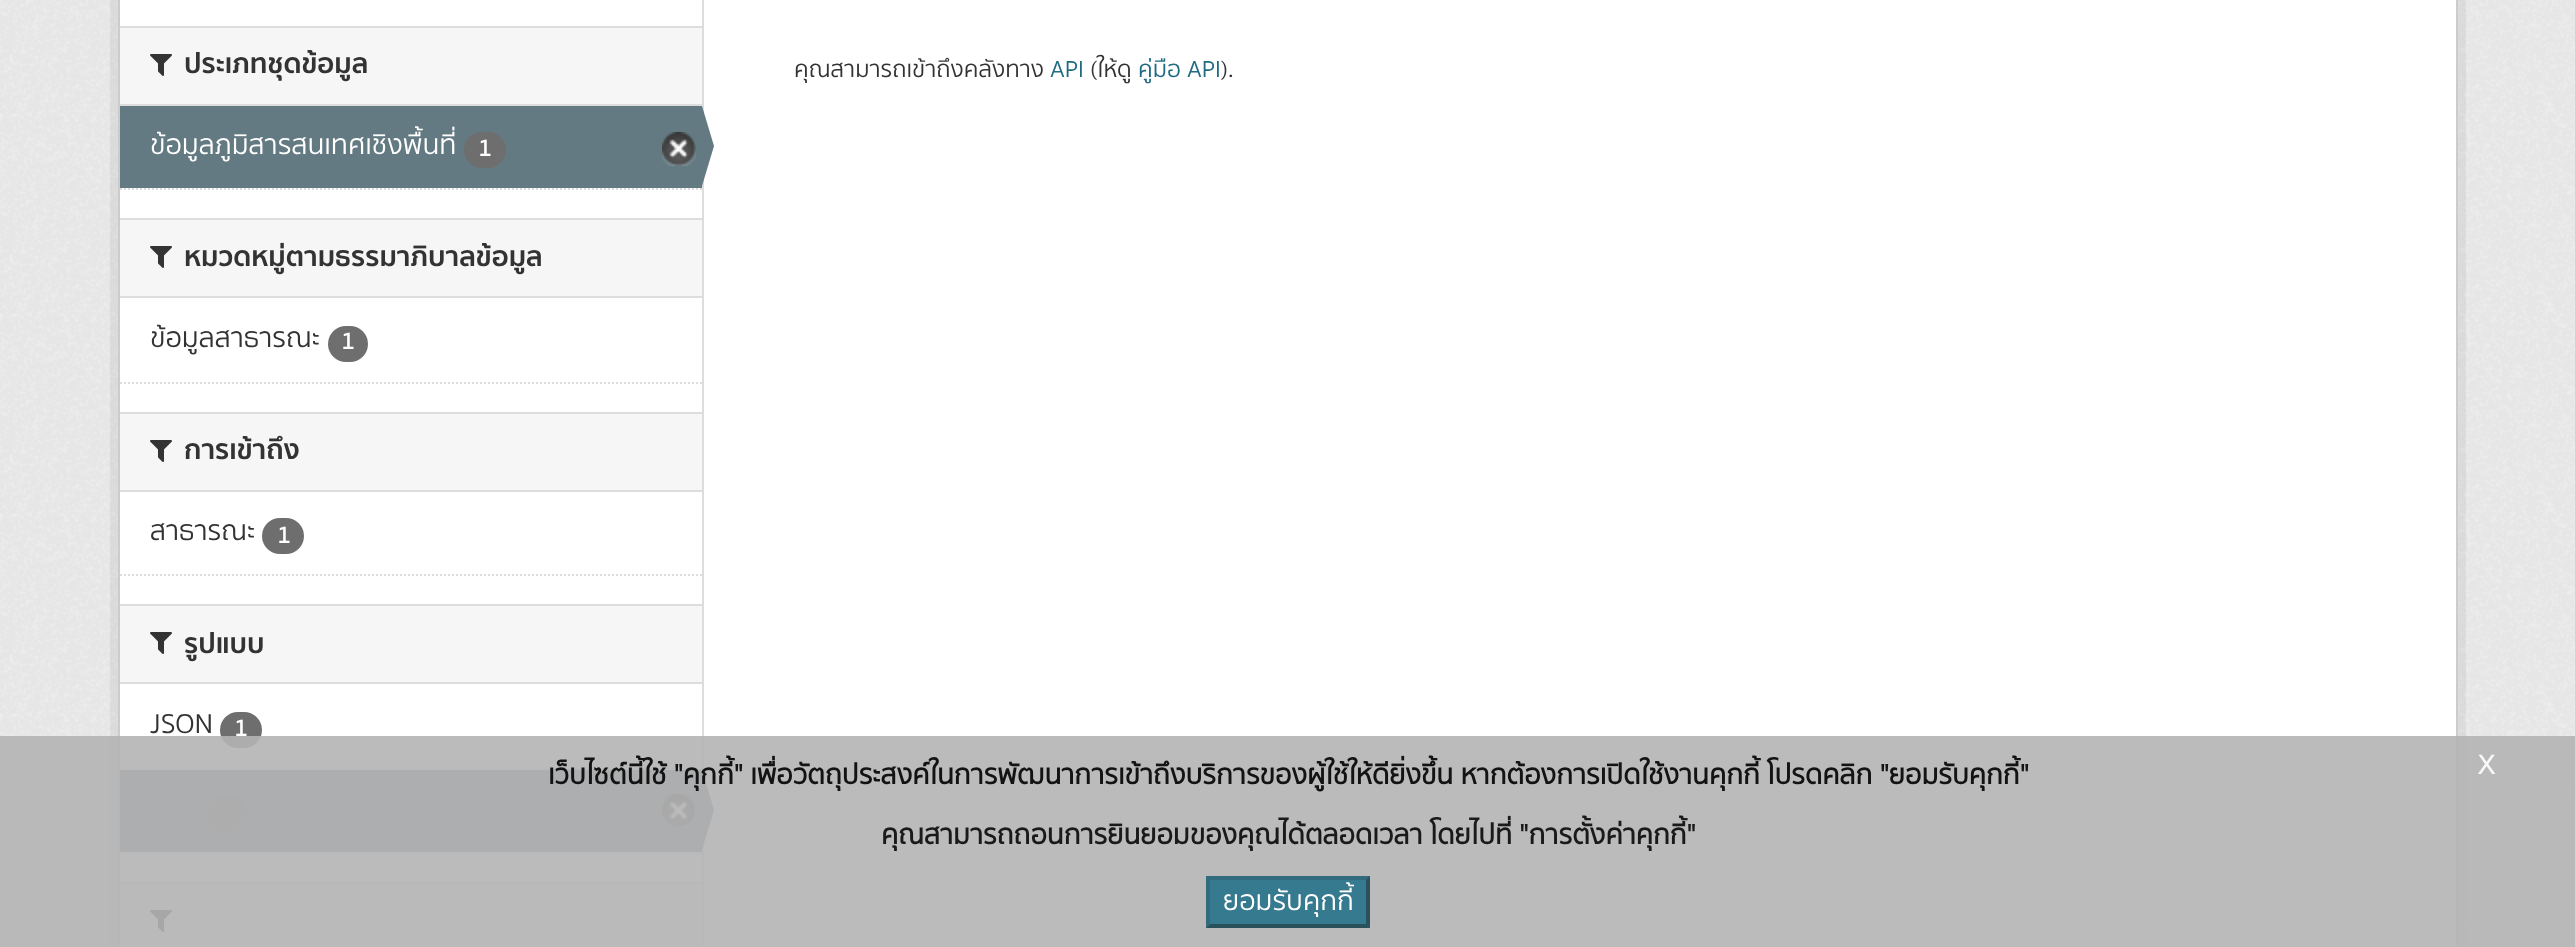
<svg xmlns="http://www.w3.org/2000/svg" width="2575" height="947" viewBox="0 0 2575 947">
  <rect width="100%" height="100%" fill="rgb(238,238,238)"/>
  <image x="0" y="0" width="2575" height="947" href="pic1.png"/>
  <rect x="114" y="-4" width="2348" height="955" fill="none" stroke="rgba(0,0,0,0.05)" stroke-width="8"/>
  <rect x="119" y="-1" width="2338" height="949" fill="rgb(255,255,255)" stroke="rgb(204,204,204)" stroke-width="2"/>
  <rect x="120" y="28" width="582" height="76" fill="rgb(246,246,246)"/>
  <rect x="120" y="26" width="582" height="2" fill="rgb(221,221,221)"/>
  <rect x="120" y="104" width="582" height="2" fill="rgb(221,221,221)"/>
  <image x="150" y="54" width="22" height="22" href="pic2.png"/>
  <text x="184" y="73" font-family="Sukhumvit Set" font-size="28" font-weight="bold" fill="rgb(51,51,51)">ประเภทชุดข้อมูล</text>
  <rect x="120" y="106" width="582" height="82" fill="rgb(100,122,130)"/>
  <text x="150" y="154" font-family="Sukhumvit Set" font-size="28" fill="rgb(255,255,255)">ข้อมูลภูมิสารสนเทศเชิงพื้นที่</text>
  <rect x="464" y="132" width="42" height="36" rx="18" fill="rgb(110,110,110)"/>
  <text x="478" y="156" font-family="'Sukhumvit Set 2'" font-size="24" font-weight="bold" fill="rgb(255,255,255)">1</text>
  <image x="662" y="132" width="34" height="34" href="pic3.png"/>
  <rect x="702" y="0" width="2" height="947" fill="rgb(221,221,221)"/>
  <path d="M702 186V106L714 146Z" fill="rgb(100,122,130)"/>
  <path d="M120 189H702" fill="none" stroke="rgb(221,221,221)" stroke-width="2" stroke-dasharray="2 2"/>
  <rect x="120" y="220" width="582" height="76" fill="rgb(246,246,246)"/>
  <rect x="120" y="218" width="582" height="2" fill="rgb(221,221,221)"/>
  <rect x="120" y="296" width="582" height="2" fill="rgb(221,221,221)"/>
  <image x="150" y="246" width="22" height="22" href="pic2.png"/>
  <text x="184" y="266" font-family="Sukhumvit Set" font-size="28" font-weight="bold" fill="rgb(51,51,51)">หมวดหมู่ตามธรรมาภิบาลข้อมูล</text>
  <text x="150" y="347" font-family="Sukhumvit Set" font-size="28" fill="rgb(51,51,51)">ข้อมูลสาธารณะ</text>
  <rect x="328" y="326" width="40" height="36" rx="18" fill="rgb(110,110,110)"/>
  <text x="341" y="349" font-family="'Sukhumvit Set 2'" font-size="24" font-weight="bold" fill="rgb(255,255,255)">1</text>
  <path d="M120 383H702" fill="none" stroke="rgb(221,221,221)" stroke-width="2" stroke-dasharray="2 2"/>
  <rect x="120" y="414" width="582" height="76" fill="rgb(246,246,246)"/>
  <rect x="120" y="412" width="582" height="2" fill="rgb(221,221,221)"/>
  <rect x="120" y="490" width="582" height="2" fill="rgb(221,221,221)"/>
  <image x="150" y="440" width="22" height="22" href="pic2.png"/>
  <text x="184" y="459" font-family="Sukhumvit Set" font-size="28" font-weight="bold" fill="rgb(51,51,51)">การเข้าถึง</text>
  <text x="150" y="540" font-family="Sukhumvit Set" font-size="28" fill="rgb(51,51,51)">สาธารณะ</text>
  <rect x="262" y="518" width="42" height="36" rx="18" fill="rgb(110,110,110)"/>
  <text x="277" y="543" font-family="'Sukhumvit Set 2'" font-size="24" font-weight="bold" fill="rgb(255,255,255)">1</text>
  <path d="M120 575H702" fill="none" stroke="rgb(221,221,221)" stroke-width="2" stroke-dasharray="2 2"/>
  <rect x="120" y="606" width="582" height="76" fill="rgb(246,246,246)"/>
  <rect x="120" y="604" width="582" height="2" fill="rgb(221,221,221)"/>
  <rect x="120" y="682" width="582" height="2" fill="rgb(221,221,221)"/>
  <image x="150" y="632" width="22" height="22" href="pic2.png"/>
  <text x="184" y="653" font-family="Sukhumvit Set" font-size="28" font-weight="bold" fill="rgb(51,51,51)">รูปแบบ</text>
  <path d="M120 769H702" fill="none" stroke="rgb(221,221,221)" stroke-width="2" stroke-dasharray="2 2"/>
  <text x="150" y="733" font-family="Sukhumvit Set" font-size="28" fill="rgb(51,51,51)">JSON</text>
  <rect x="220" y="712" width="42" height="36" rx="18" fill="rgb(110,110,110)"/>
  <text x="234" y="736" font-family="'Sukhumvit Set 2'" font-size="24" font-weight="bold" fill="rgb(255,255,255)">1</text>
  <rect x="120" y="770" width="582" height="82" fill="rgb(100,122,130)"/>
  <rect x="206" y="796" width="42" height="36" rx="18" fill="rgb(110,110,110)"/>
  <image x="662" y="794" width="34" height="34" href="pic3.png"/>
  <path d="M702 850V770L714 810Z" fill="rgb(100,122,130)"/>
  <path d="M120 853H702" fill="none" stroke="rgb(221,221,221)" stroke-width="2" stroke-dasharray="2 2"/>
  <rect x="120" y="884" width="582" height="63" fill="rgb(246,246,246)"/>
  <rect x="120" y="882" width="582" height="2" fill="rgb(221,221,221)"/>
  <image x="150" y="910" width="22" height="22" href="pic2.png"/>
  <text x="794" y="77" font-family="Sukhumvit Set" font-size="23.75" fill="rgb(51,51,51)">คุณสามารถเข้าถึงคลังทาง</text>
  <text x="1050" y="77" font-family="Sukhumvit Set" font-size="23.75" fill="rgb(32,107,130)">API</text>
  <text x="1090" y="77" font-family="Sukhumvit Set" font-size="23.75" fill="rgb(51,51,51)">(ให้ดู</text>
  <text x="1138" y="77" font-family="Sukhumvit Set" font-size="23.75" fill="rgb(32,107,130)">คู่มือ API</text>
  <text x="1221" y="77" font-family="Sukhumvit Set" font-size="23.75" fill="rgb(51,51,51)">).</text>
  <rect x="0" y="736" width="2575" height="211" fill="rgba(181,180,180,0.9)"/>
  <text x="548" y="784" font-family="'Sukhumvit Set 2'" font-size="28" font-weight="bold" fill="rgb(19,19,19)">เว็บไซต์นี้ใช้ "คุกกี้" เพื่อวัตถุประสงค์ในการพัฒนาการเข้าถึงบริการของผู้ใช้ให้ดียิ่งขึ้น หากต้องการเปิดใช้งานคุกกี้ โปรดคลิก "ยอมรับคุกกี้"</text>
  <text x="2477" y="774" font-family="Sukhumvit Set" font-size="40" fill="rgb(248,248,248)">x</text>
  <text x="881" y="844" font-family="'Sukhumvit Set 2'" font-size="28" font-weight="bold" fill="rgb(26,26,26)">คุณสามารถถอนการยินยอมของคุณได้ตลอดเวลา โดยไปที่ "การตั้งค่าคุกกี้"</text>
  <rect x="1206" y="876" width="164" height="52" fill="rgb(54,122,143)"/>
  <path d="M1206 876H1370L1366 880H1210Z" fill="rgb(50,107,125)"/>
  <path d="M1370 876V928L1366 924V880Z" fill="rgb(42,80,91)"/>
  <path d="M1370 928H1206L1210 924H1366Z" fill="rgb(42,80,91)"/>
  <path d="M1206 928V876L1210 880V924Z" fill="rgb(50,107,125)"/>
  <text x="1223" y="910" font-family="Sukhumvit Set" font-size="28" fill="rgb(255,255,255)">ยอมรับคุกกี้</text>
</svg>
